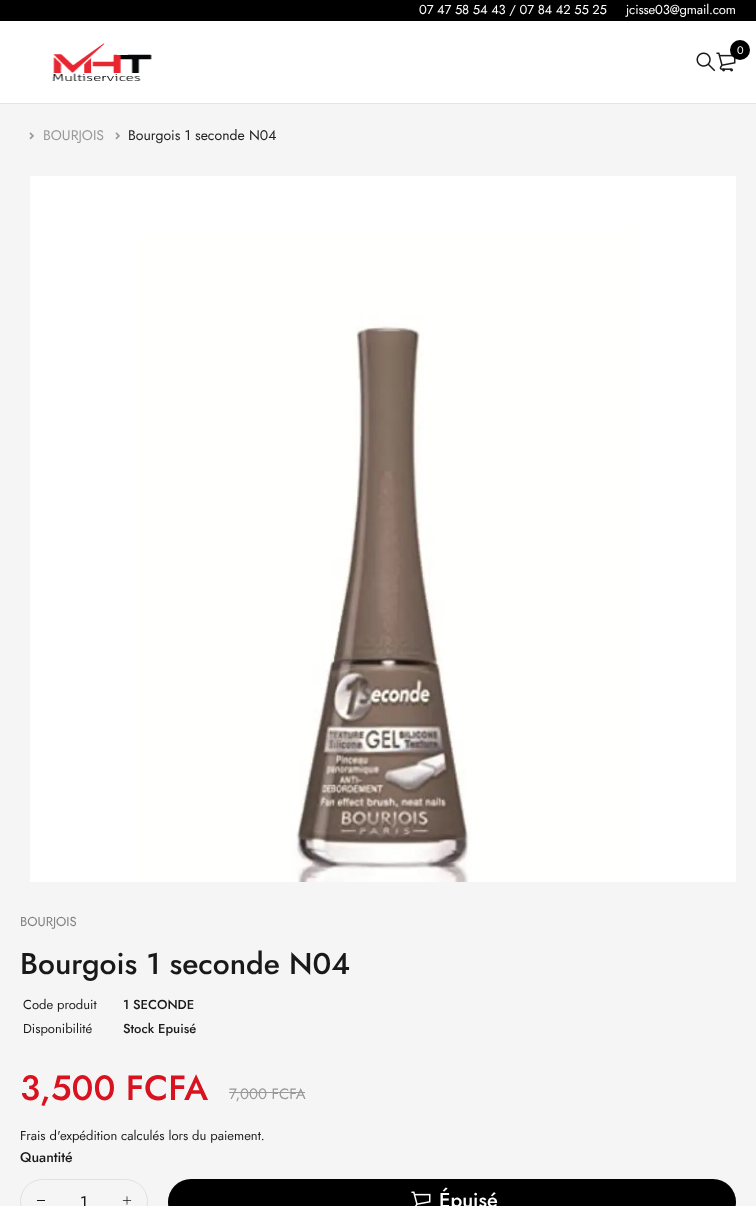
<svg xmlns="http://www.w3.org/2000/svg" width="756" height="1206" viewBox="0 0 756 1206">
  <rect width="100%" height="100%" fill="rgb(245,245,245)"/>
  <rect x="0" y="103" width="756" height="1" fill="rgb(229,229,229)"/>
  <rect x="0" y="21" width="756" height="82" fill="rgb(255,255,255)"/>
  <rect x="0" y="0" width="756" height="21" fill="rgb(0,0,0)"/>
  <g font-family="Jost" font-size="13" letter-spacing="-0.15" fill="rgb(255,255,255)">
    <text x="419" y="14">07 47 58 54 43 / 07 84 42 55 25</text>
    <text x="626" y="14">jcisse03@gmail.com</text>
  </g>
  <image x="52" y="43" width="100" height="38" href="pic1.png"/>
  <image x="716" y="52" width="20" height="20" href="pic2.png"/>
  <circle cx="740" cy="50" r="10" fill="rgb(0,0,0)"/>
  <text x="737" y="54" font-family="Jost" font-size="11" fill="rgb(255,255,255)">0</text>
  <image x="696" y="52" width="20" height="20" href="pic3.png"/>
  <image x="29" y="132" width="5" height="8" href="pic4.png"/>
  <text x="43" y="140" font-family="Jost" font-size="14" fill="rgb(153,153,153)">BOURJOIS</text>
  <image x="115" y="132" width="5" height="8" href="pic4.png"/>
  <text x="128" y="140" font-family="Jost" font-size="14" fill="rgb(34,34,34)">Bourgois 1 seconde N04</text>
  <image x="30" y="176" width="706" height="706" href="pic5.png"/>
  <text x="20" y="926" font-family="Jost" font-size="13" fill="rgb(128,128,128)">BOURJOIS</text>
  <text x="20" y="974" font-family="Jost" font-size="30" font-weight="500" fill="rgb(25,25,25)">Bourgois 1 seconde N04</text>
  <text x="23" y="1009" font-family="Jost" font-size="13" fill="rgb(25,25,25)">Code produit</text>
  <text x="123" y="1009" font-family="Jost" font-size="13" font-weight="500" fill="rgb(25,25,25)">1 SECONDE</text>
  <text x="23" y="1033" font-family="Jost" font-size="13" fill="rgb(25,25,25)">Disponibilité</text>
  <text x="123" y="1033" font-family="Jost" font-size="13" font-weight="500" fill="rgb(25,25,25)">Stock Epuisé</text>
  <text x="20" y="1100" font-family="Jost" font-size="35" font-weight="500" fill="rgb(217,18,31)">3,500 FCFA</text>
  <text x="229" y="1099" font-family="Jost" font-size="15" fill="rgb(153,153,153)">7,000 FCFA</text>
  <rect x="229" y="1092" width="76" height="1" fill="rgb(153,153,153)"/>
  <text x="20" y="1140" font-family="Jost" font-size="13" fill="rgb(25,25,25)">Frais d'expédition calculés lors du paiement.</text>
  <text x="20" y="1162" font-family="Jost" font-size="14" font-weight="500" fill="rgb(25,25,25)">Quantité</text>
  <rect x="20.5" y="1179.5" width="127" height="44" rx="22" fill="none" stroke="rgb(225,225,225)"/>
  <rect x="37" y="1200" width="8" height="1" fill="rgb(25,25,25)"/>
  <text x="80" y="1208" font-family="Jost" font-size="17" fill="rgb(25,25,25)">1</text>
  <image x="122" y="1196" width="10" height="9" href="pic6.png"/>
  <rect x="168" y="1179" width="568" height="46" rx="23" fill="rgb(0,0,0)"/>
  <image x="411" y="1191" width="20" height="15" href="pic7.png"/>
  <text x="439" y="1207" font-family="Jost" font-size="20" font-weight="500" fill="rgb(255,255,255)">Épuisé</text>
</svg>
